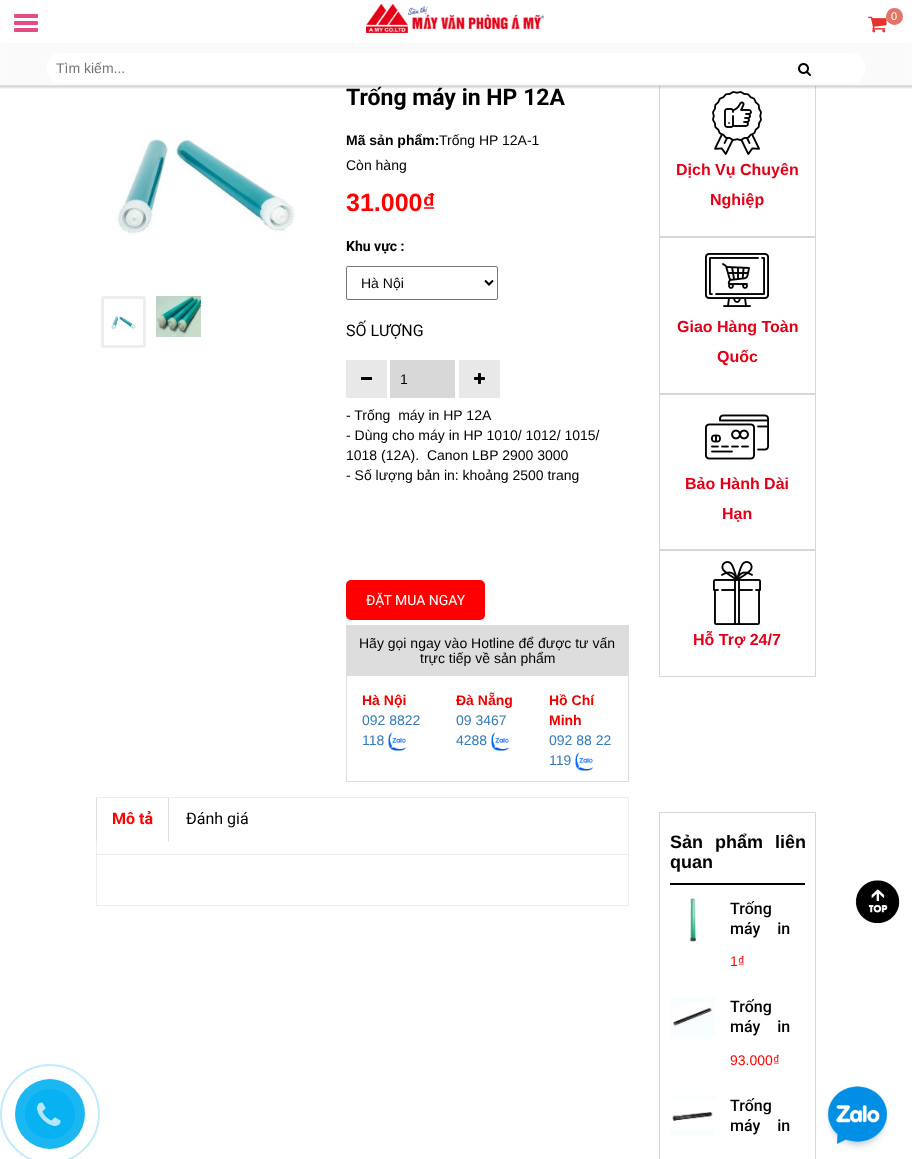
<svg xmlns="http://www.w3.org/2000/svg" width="912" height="1159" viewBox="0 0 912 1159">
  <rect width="100%" height="100%" fill="rgb(255,255,255)"/>
  <image x="101" y="86" width="210" height="190" href="pic4.png"/>
  <rect x="659.5" y="80.5" width="156" height="156" fill="none" stroke="rgb(215,215,215)"/>
  <rect x="0" y="86" width="912" height="1" fill="rgba(0,0,0,0.08)"/>
  <rect x="0" y="86" width="912" height="2" fill="rgba(0,0,0,0.06)"/>
  <rect x="0" y="86" width="912" height="3" fill="rgba(0,0,0,0.04)"/>
  <rect x="1" y="43" width="910" height="42" fill="rgb(250,250,250)"/>
  <rect x="0" y="43" width="1" height="43" fill="rgb(251,251,251)"/>
  <rect x="911" y="43" width="1" height="43" fill="rgb(251,251,251)"/>
  <rect x="0" y="85" width="912" height="1" fill="rgb(225,225,225)"/>
  <rect x="0" y="85" width="1" height="1" fill="rgb(228,228,228)"/>
  <rect x="911" y="85" width="1" height="1" fill="rgb(228,228,228)"/>
  <rect x="14" y="14" width="24" height="4" rx="1" fill="rgb(226,77,133)"/>
  <rect x="14" y="21" width="24" height="4" rx="1" fill="rgb(226,77,133)"/>
  <rect x="14" y="28" width="24" height="4" rx="1" fill="rgb(226,77,133)"/>
  <image x="366" y="4" width="179" height="29" href="pic1.png"/>
  <image x="868" y="16" width="19" height="17" href="pic2.png"/>
  <circle cx="894.5" cy="16.5" r="8.5" fill="rgb(229,115,104)"/>
  <text x="891" y="20" font-family="Liberation Sans" font-size="11" fill="rgb(255,255,255)">0</text>
  <rect x="46" y="53" width="820" height="30" rx="15" fill="rgb(255,255,255)"/>
  <text x="56" y="73" font-family="Liberation Sans" font-size="14" fill="rgb(117,117,117)">Tìm kiếm...</text>
  <image x="798" y="63" width="13" height="13" href="pic3.png"/>
  <rect x="102.5" y="297.5" width="42" height="49" rx="1.5" fill="none" stroke="rgb(238,238,238)" stroke-width="3"/>
  <image x="111" y="316" width="25" height="14" href="pic5.png"/>
  <image x="156" y="296" width="45" height="41" href="pic6.png"/>
  <text x="346" y="105" font-family="Roboto" font-size="23" font-weight="bold" fill="rgb(0,0,0)">Trống máy in HP 12A</text>
  <text x="346" y="145" font-family="Liberation Sans" font-size="14" font-weight="bold" fill="rgb(0,0,0)">Mã sản phẩm:</text>
  <g font-family="Liberation Sans" font-size="14" fill="rgb(0,0,0)">
    <text x="439" y="145">Trống HP 12A-1</text>
    <text x="346" y="170">Còn hàng</text>
  </g>
  <text x="346" y="211" font-family="Liberation Sans" font-size="25" font-weight="bold" fill="rgb(255,0,0)">31.000₫</text>
  <text x="346" y="251" font-family="Roboto" font-size="14" font-weight="bold" fill="rgb(0,0,0)">Khu vực :</text>
  <rect x="346.5" y="266.5" width="151" height="33" rx="1.5" fill="none" stroke="rgb(118,118,118)"/>
  <path d="M485 280.5L489 284.5L493 280.5" fill="none" stroke="rgb(0,0,0)" stroke-width="2"/>
  <text x="361" y="288" font-family="Liberation Sans" font-size="14" fill="rgb(0,0,0)">Hà Nội</text>
  <text x="346" y="336" font-family="Roboto" font-size="16" fill="rgb(0,0,0)">SỐ LƯỢNG</text>
  <rect x="346" y="360" width="41" height="38" fill="rgb(232,232,232)"/>
  <rect x="361" y="377" width="11" height="3" fill="rgb(0,0,0)"/>
  <rect x="390" y="360" width="65" height="38" fill="rgb(216,216,216)"/>
  <text x="400" y="384" font-family="Liberation Sans" font-size="14" fill="rgb(0,0,0)">1</text>
  <rect x="459" y="360" width="41" height="38" fill="rgb(232,232,232)"/>
  <image x="474" y="373" width="11" height="11" href="pic7.png"/>
  <g font-family="Liberation Sans" font-size="14" fill="rgb(0,0,0)">
    <text xml:space="preserve"><tspan x="346" y="420">- Trống  máy in HP 12A</tspan><tspan x="346" y="440">- Dùng cho máy in HP 1010/ 1012/ 1015/</tspan><tspan x="346" y="460">1018 (12A).  Canon LBP 2900 3000</tspan><tspan x="346" y="480">- Số lượng bản in: khoảng 2500 trang</tspan></text>
  </g>
  <rect x="346" y="580" width="139" height="40" rx="5" fill="rgb(255,0,0)"/>
  <text x="366" y="605" font-family="Roboto" font-size="14" fill="rgb(255,255,255)">ĐẶT MUA NGAY</text>
  <rect x="346.5" y="625.5" width="282" height="156" fill="none" stroke="rgb(221,221,221)"/>
  <rect x="347" y="626" width="281" height="50" fill="rgb(221,221,221)"/>
  <g font-family="Liberation Sans" font-size="14" fill="rgb(0,0,0)">
    <text x="359" y="648">Hãy gọi ngay vào Hotline để được tư vấn</text>
    <text x="420" y="663">trực tiếp về sản phẩm</text>
  </g>
  <text x="362" y="705" font-family="Liberation Sans" font-size="14" font-weight="bold" fill="rgb(238,0,0)">Hà Nội</text>
  <g font-family="Liberation Sans" font-size="14" fill="rgb(51,122,183)">
    <text>
      <tspan x="362" y="725">092 8822</tspan>
      <tspan x="362" y="745">118</tspan>
    </text>
  </g>
  <image x="388" y="731" width="20" height="20" href="pic8.png"/>
  <text x="456" y="705" font-family="Liberation Sans" font-size="14" font-weight="bold" fill="rgb(238,0,0)">Đà Nẵng</text>
  <g font-family="Liberation Sans" font-size="14" fill="rgb(51,122,183)">
    <text>
      <tspan x="456" y="725">09 3467</tspan>
      <tspan x="456" y="745">4288</tspan>
    </text>
  </g>
  <image x="491" y="731" width="20" height="20" href="pic9.png"/>
  <g font-family="Liberation Sans" font-size="14" font-weight="bold" fill="rgb(238,0,0)">
    <text>
      <tspan x="549" y="705">Hồ Chí</tspan>
      <tspan x="549" y="725">Minh</tspan>
    </text>
  </g>
  <g font-family="Liberation Sans" font-size="14" fill="rgb(51,122,183)">
    <text>
      <tspan x="549" y="745">092 88 22</tspan>
      <tspan x="549" y="765">119</tspan>
    </text>
  </g>
  <image x="575" y="751" width="20" height="20" href="pic10.png"/>
  <image x="712" y="91" width="50" height="64" href="pic11.png"/>
  <g font-family="Liberation Sans" font-size="16" font-weight="bold" fill="rgb(227,0,22)">
    <text x="676" y="175">Dịch Vụ Chuyên</text>
    <text x="710" y="205">Nghiệp</text>
  </g>
  <rect x="659.5" y="237.5" width="156" height="156" fill="none" stroke="rgb(215,215,215)"/>
  <image x="705" y="253" width="64" height="54" href="pic12.png"/>
  <g font-family="Liberation Sans" font-size="16" font-weight="bold" fill="rgb(227,0,22)">
    <text x="677" y="332">Giao Hàng Toàn</text>
    <text x="717" y="362">Quốc</text>
  </g>
  <rect x="659.5" y="394.5" width="156" height="155" fill="none" stroke="rgb(215,215,215)"/>
  <image x="705" y="414" width="64" height="46" href="pic13.png"/>
  <g font-family="Liberation Sans" font-size="16" font-weight="bold" fill="rgb(227,0,22)">
    <text x="685" y="489">Bảo Hành Dài</text>
    <text x="722" y="519">Hạn</text>
  </g>
  <rect x="659.5" y="550.5" width="156" height="126" fill="none" stroke="rgb(215,215,215)"/>
  <image x="713" y="561" width="48" height="64" href="pic14.png"/>
  <text x="693" y="645" font-family="Liberation Sans" font-size="16" font-weight="bold" fill="rgb(227,0,22)">Hỗ Trợ 24/7</text>
  <rect x="96.5" y="797.5" width="532" height="57" fill="none" stroke="rgb(237,237,237)"/>
  <rect x="96" y="798" width="1" height="44" fill="rgb(255,255,255)"/>
  <path d="M169 798V842L168 841V798Z" fill="rgb(221,221,221)"/>
  <path d="M96 842V798H97V841Z" fill="rgb(221,221,221)"/>
  <text x="112" y="824" font-family="Roboto" font-size="16" font-weight="bold" fill="rgb(255,0,0)">Mô tả</text>
  <text x="186" y="824" font-family="Roboto" font-size="16" fill="rgb(0,0,0)">Đánh giá</text>
  <rect x="628" y="855" width="1" height="51" fill="rgb(237,237,237)"/>
  <rect x="96" y="905" width="533" height="1" fill="rgb(237,237,237)"/>
  <rect x="96" y="855" width="1" height="51" fill="rgb(237,237,237)"/>
  <rect x="659.5" y="812.5" width="156" height="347" fill="none" stroke="rgb(215,215,215)"/>
  <rect x="670" y="883" width="135" height="2" fill="rgb(0,0,0)"/>
  <g font-family="Liberation Sans" font-size="18" font-weight="bold" fill="rgb(0,0,0)">
    <text>
      <tspan x="670" y="848" word-spacing="7">Sản phẩm liên</tspan>
      <tspan x="670" y="868">quan</tspan>
    </text>
  </g>
  <image x="689" y="898" width="8" height="44" href="pic15.png"/>
  <g font-family="Roboto" font-size="16" font-weight="500" fill="rgb(0,0,0)">
    <text>
      <tspan x="730" y="914">Trống</tspan>
      <tspan x="730" y="934" word-spacing="13">máy in</tspan>
    </text>
  </g>
  <text x="730" y="966" font-family="Liberation Sans" font-size="14" fill="rgb(255,0,0)">1₫</text>
  <image x="670" y="996" width="45" height="41" href="pic16.png"/>
  <g font-family="Roboto" font-size="16" font-weight="500" fill="rgb(0,0,0)">
    <text>
      <tspan x="730" y="1012">Trống</tspan>
      <tspan x="730" y="1032" word-spacing="13">máy in</tspan>
    </text>
  </g>
  <text x="730" y="1065" font-family="Liberation Sans" font-size="14" fill="rgb(255,0,0)">93.000₫</text>
  <image x="670" y="1095" width="45" height="41" href="pic17.png"/>
  <g font-family="Roboto" font-size="16" font-weight="500" fill="rgb(0,0,0)">
    <text>
      <tspan x="730" y="1111">Trống</tspan>
      <tspan x="730" y="1131" word-spacing="13">máy in</tspan>
    </text>
  </g>
  <image x="855" y="880" width="45" height="44" href="pic18.png"/>
  <circle cx="50" cy="1114" r="49" fill="none" stroke="rgb(191,235,252)" stroke-width="2"/>
  <circle cx="50" cy="1114" r="35" fill="rgb(26,183,243)"/>
  <circle cx="50" cy="1114" r="25" fill="rgb(8,177,242)"/>
  <image x="37" y="1102" width="24" height="24" href="pic19.png"/>
  <image x="826" y="1086" width="63" height="64" href="pic20.png"/>
</svg>
